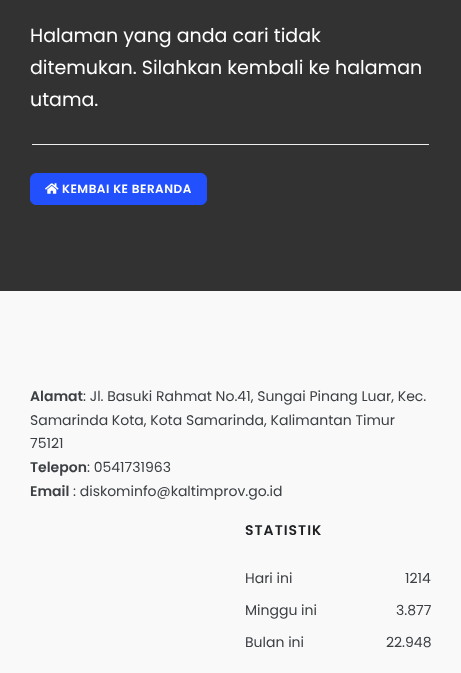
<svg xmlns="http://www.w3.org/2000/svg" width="461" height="673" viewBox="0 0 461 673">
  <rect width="100%" height="100%" fill="rgb(249,249,250)"/>
  <rect x="0" y="0" width="461" height="291" fill="rgb(50,50,50)"/>
  <g font-family="Poppins" font-size="19" fill="rgb(255,255,255)">
    <text>
      <tspan x="30" y="42">Halaman yang anda cari tidak</tspan>
      <tspan x="30" y="74">ditemukan. Silahkan kembali ke halaman</tspan>
      <tspan x="30" y="106">utama.</tspan>
    </text>
  </g>
  <rect x="32" y="144" width="397" height="1" fill="rgb(238,238,238)"/>
  <rect x="30.5" y="173.5" width="176" height="31" rx="5.5" fill="rgb(34,80,252)" stroke="rgb(34,80,252)"/>
  <image x="45" y="183" width="14" height="11" href="pic1.png"/>
  <text x="62" y="193" font-family="Poppins" font-size="12" font-weight="600" letter-spacing="0.5" fill="rgb(255,255,255)">KEMBAI KE BERANDA</text>
  <text x="30" y="401" font-family="Poppins" font-size="14" font-weight="600" fill="rgb(60,64,67)">Alamat</text>
  <g font-family="Poppins" font-size="14" fill="rgb(60,64,67)">
    <text x="83" y="401">: Jl. Basuki Rahmat No.41, Sungai Pinang Luar, Kec.</text>
    <text>
      <tspan x="30" y="425">Samarinda Kota, Kota Samarinda, Kalimantan Timur</tspan>
      <tspan x="30" y="448">75121</tspan>
    </text>
  </g>
  <text x="30" y="472" font-family="Poppins" font-size="14" font-weight="600" fill="rgb(60,64,67)">Telepon</text>
  <text x="87" y="472" font-family="Poppins" font-size="14" fill="rgb(60,64,67)">: 0541731963</text>
  <text x="30" y="496" font-family="Poppins" font-size="14" font-weight="600" fill="rgb(60,64,67)">Email</text>
  <text x="73" y="496" font-family="Poppins" font-size="14" fill="rgb(60,64,67)">: diskominfo@kaltimprov.go.id</text>
  <text x="245" y="535" font-family="Poppins" font-size="14" font-weight="600" letter-spacing="1" fill="rgb(30,32,34)">STATISTIK</text>
  <g font-family="Poppins" font-size="14" fill="rgb(60,64,67)">
    <text x="245" y="583">Hari ini</text>
    <text x="405" y="583">1214</text>
    <text x="245" y="615">Minggu ini</text>
    <text x="396" y="615">3.877</text>
    <text x="245" y="647">Bulan ini</text>
    <text x="386" y="647">22.948</text>
  </g>
</svg>
